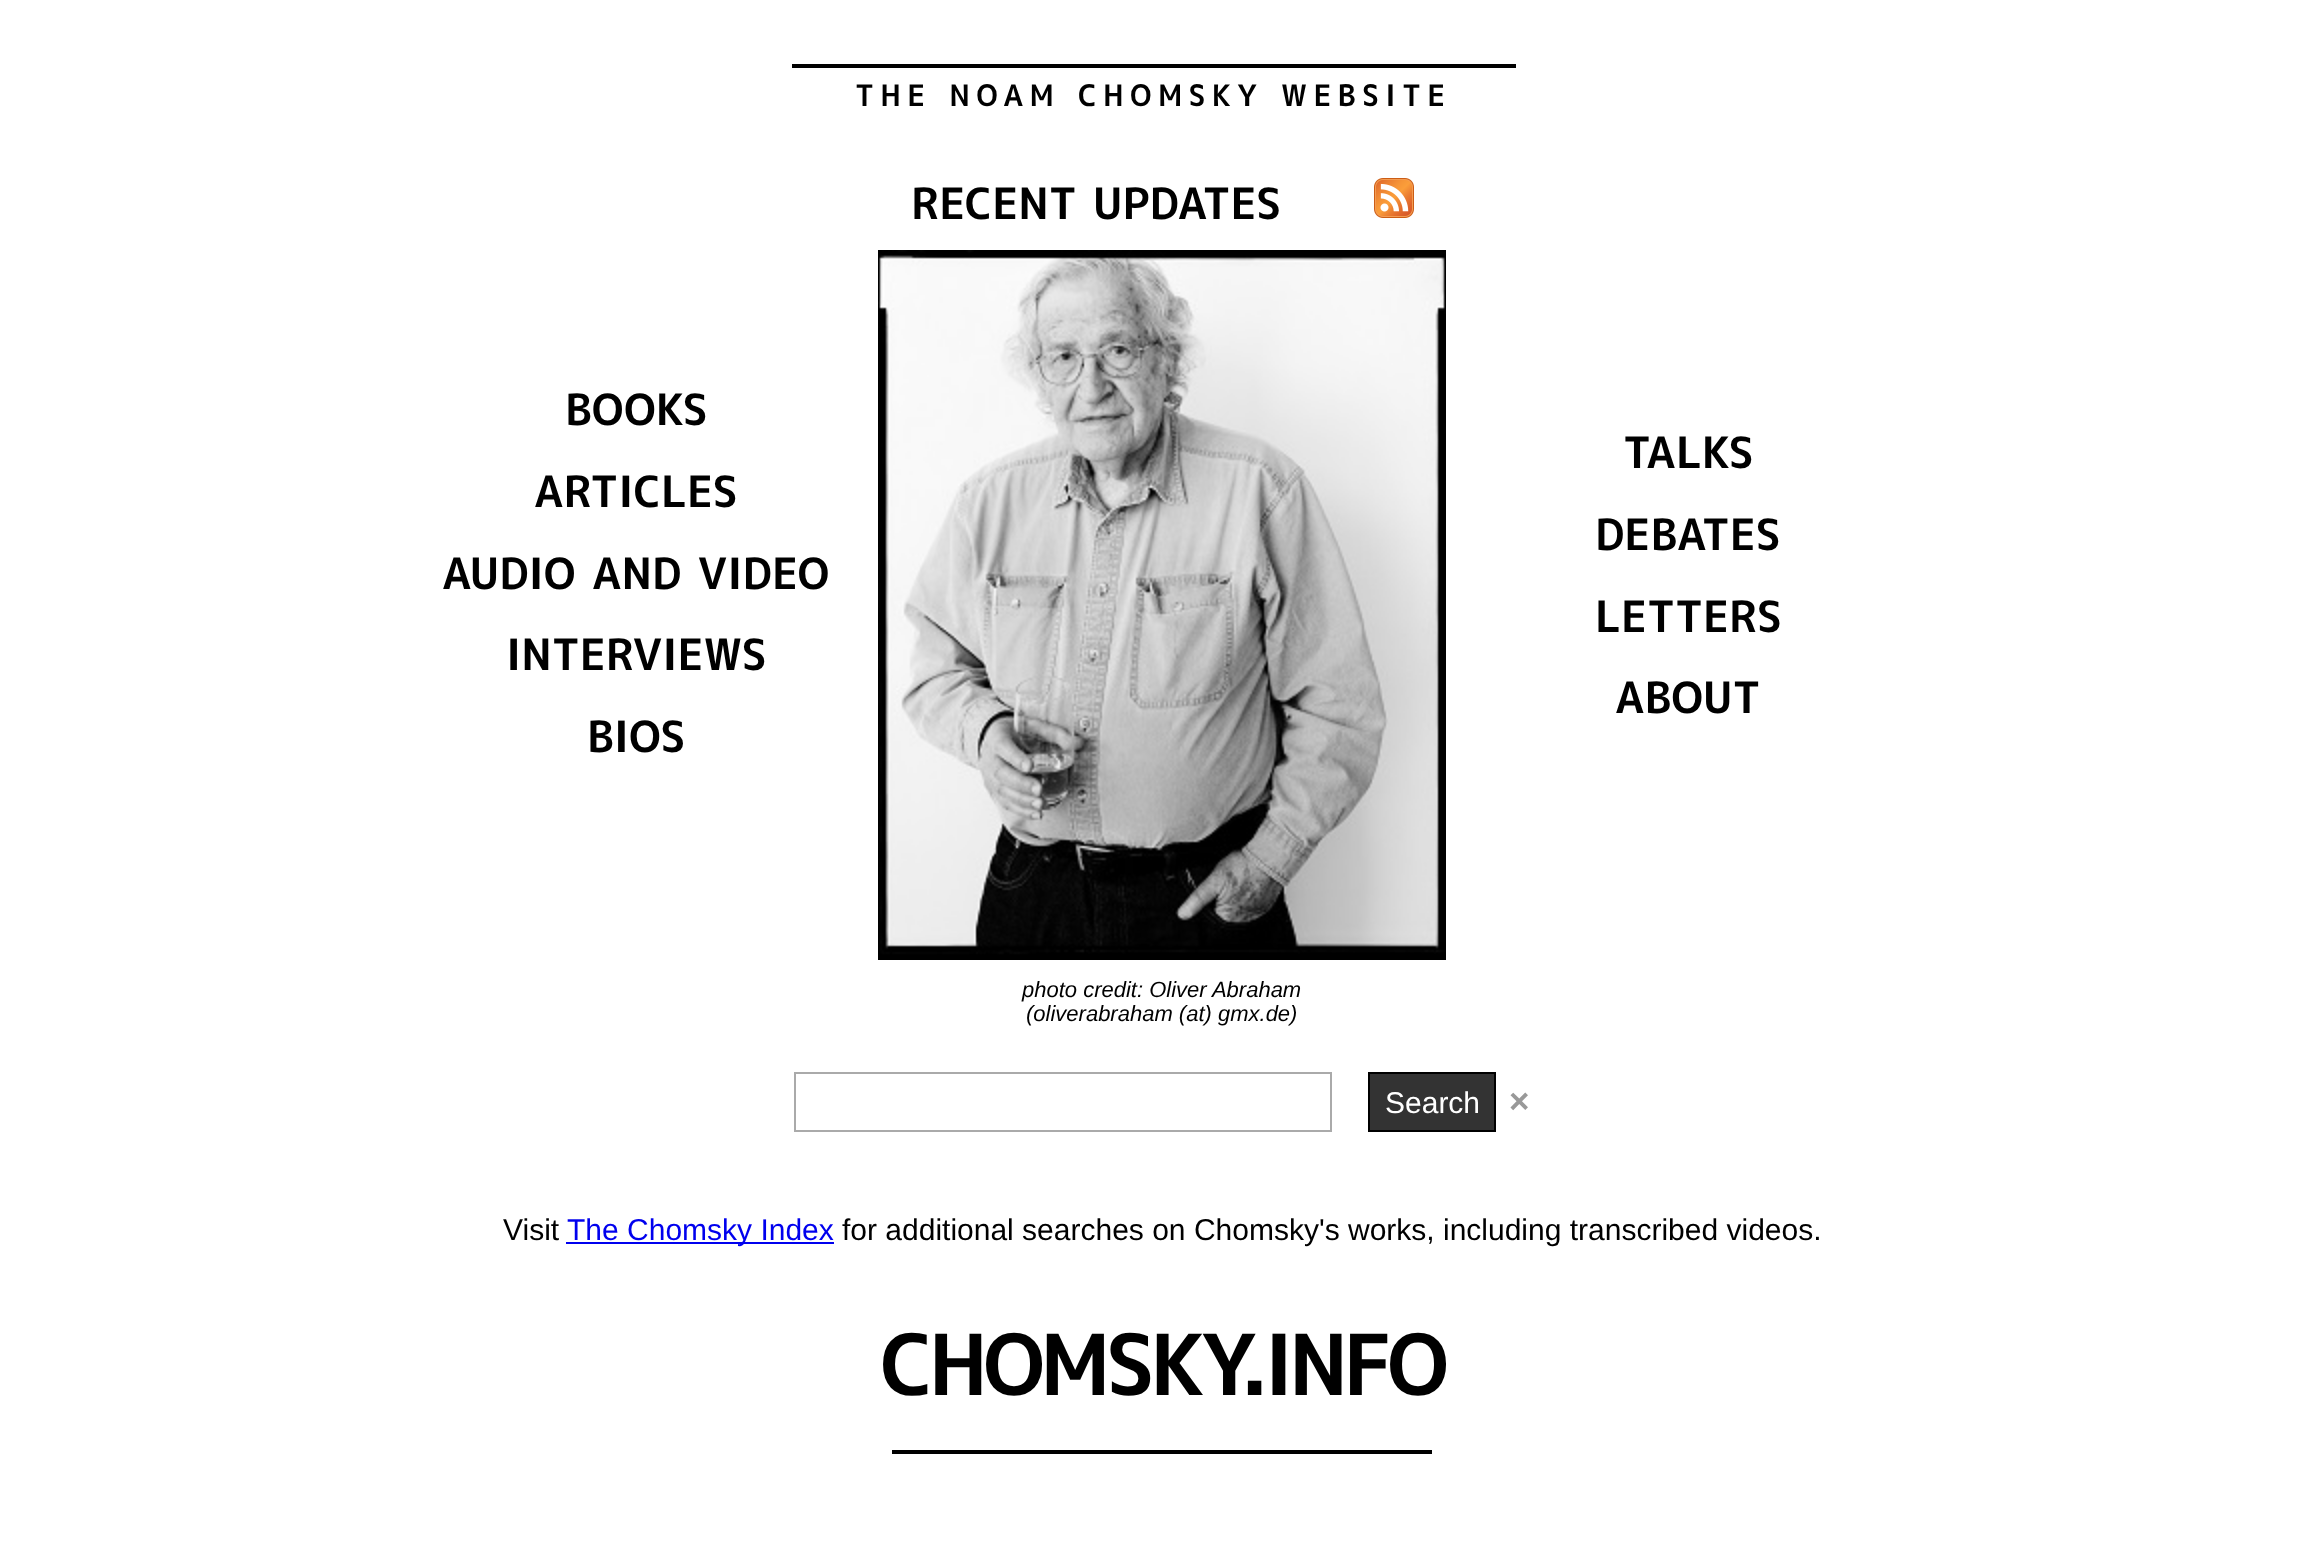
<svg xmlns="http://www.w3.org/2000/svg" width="2323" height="1554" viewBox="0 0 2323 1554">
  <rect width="100%" height="100%" fill="rgb(255,255,255)"/>
  <rect x="792" y="64" width="724" height="4" fill="rgb(0,0,0)"/>
  <text x="855" y="106" font-family="'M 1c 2'" font-size="28.5" font-weight="bold" letter-spacing="7.1" fill="rgb(0,0,0)">THE NOAM CHOMSKY WEBSITE</text>
  <text x="911" y="219" font-family="'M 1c'" font-size="43" font-weight="bold" fill="rgb(0,0,0)">RECENT UPDATES</text>
  <image x="1374" y="178" width="40" height="40" href="pic1.png"/>
  <image x="878" y="250" width="568" height="710" href="pic2.png"/>
  <g font-family="'M 1c'" font-size="43" font-weight="bold" fill="rgb(0,0,0)">
    <text x="565" y="425">BOOKS</text>
    <text x="534" y="507">ARTICLES</text>
    <text x="442" y="589">AUDIO AND VIDEO</text>
    <text x="506" y="670">INTERVIEWS</text>
    <text x="587" y="752">BIOS</text>
    <text x="1623" y="468">TALKS</text>
    <text>
      <tspan x="1595" y="550">DEBATES</tspan>
      <tspan x="1595" y="632">LETTERS</tspan>
    </text>
    <text x="1615" y="713">ABOUT</text>
  </g>
  <g font-family="Liberation Sans" font-size="22" font-style="italic" fill="rgb(0,0,0)">
    <text x="1022" y="997">photo credit: Oliver Abraham</text>
    <text x="1026" y="1021">(oliverabraham (at) gmx.de)</text>
  </g>
  <rect x="795" y="1073" width="536" height="58" fill="none" stroke="rgb(170,170,170)" stroke-width="2"/>
  <rect x="1369" y="1073" width="126" height="58" fill="rgb(51,51,51)" stroke="rgb(0,0,0)" stroke-width="2"/>
  <text x="1385" y="1113" font-family="Liberation Sans" font-size="30" fill="rgb(255,255,255)">Search</text>
  <text x="1509" y="1113" font-family="Liberation Sans" font-size="35" font-weight="bold" fill="rgb(153,153,153)">×</text>
  <text x="503" y="1240" font-family="Liberation Sans" font-size="30" fill="rgb(0,0,0)">Visit</text>
  <rect x="566" y="1242" width="268" height="2" fill="rgb(0,0,238)"/>
  <text x="567" y="1240" font-family="Liberation Sans" font-size="30" fill="rgb(0,0,238)">The Chomsky Index</text>
  <text x="842" y="1240" font-family="Liberation Sans" font-size="30" fill="rgb(0,0,0)">for additional searches on Chomsky's works, including transcribed videos.</text>
  <text x="880" y="1395" font-family="'M 1c'" font-size="84" font-weight="bold" letter-spacing="-5" fill="rgb(0,0,0)">CHOMSKY.INFO</text>
  <rect x="892" y="1450" width="540" height="4" fill="rgb(0,0,0)"/>
</svg>
